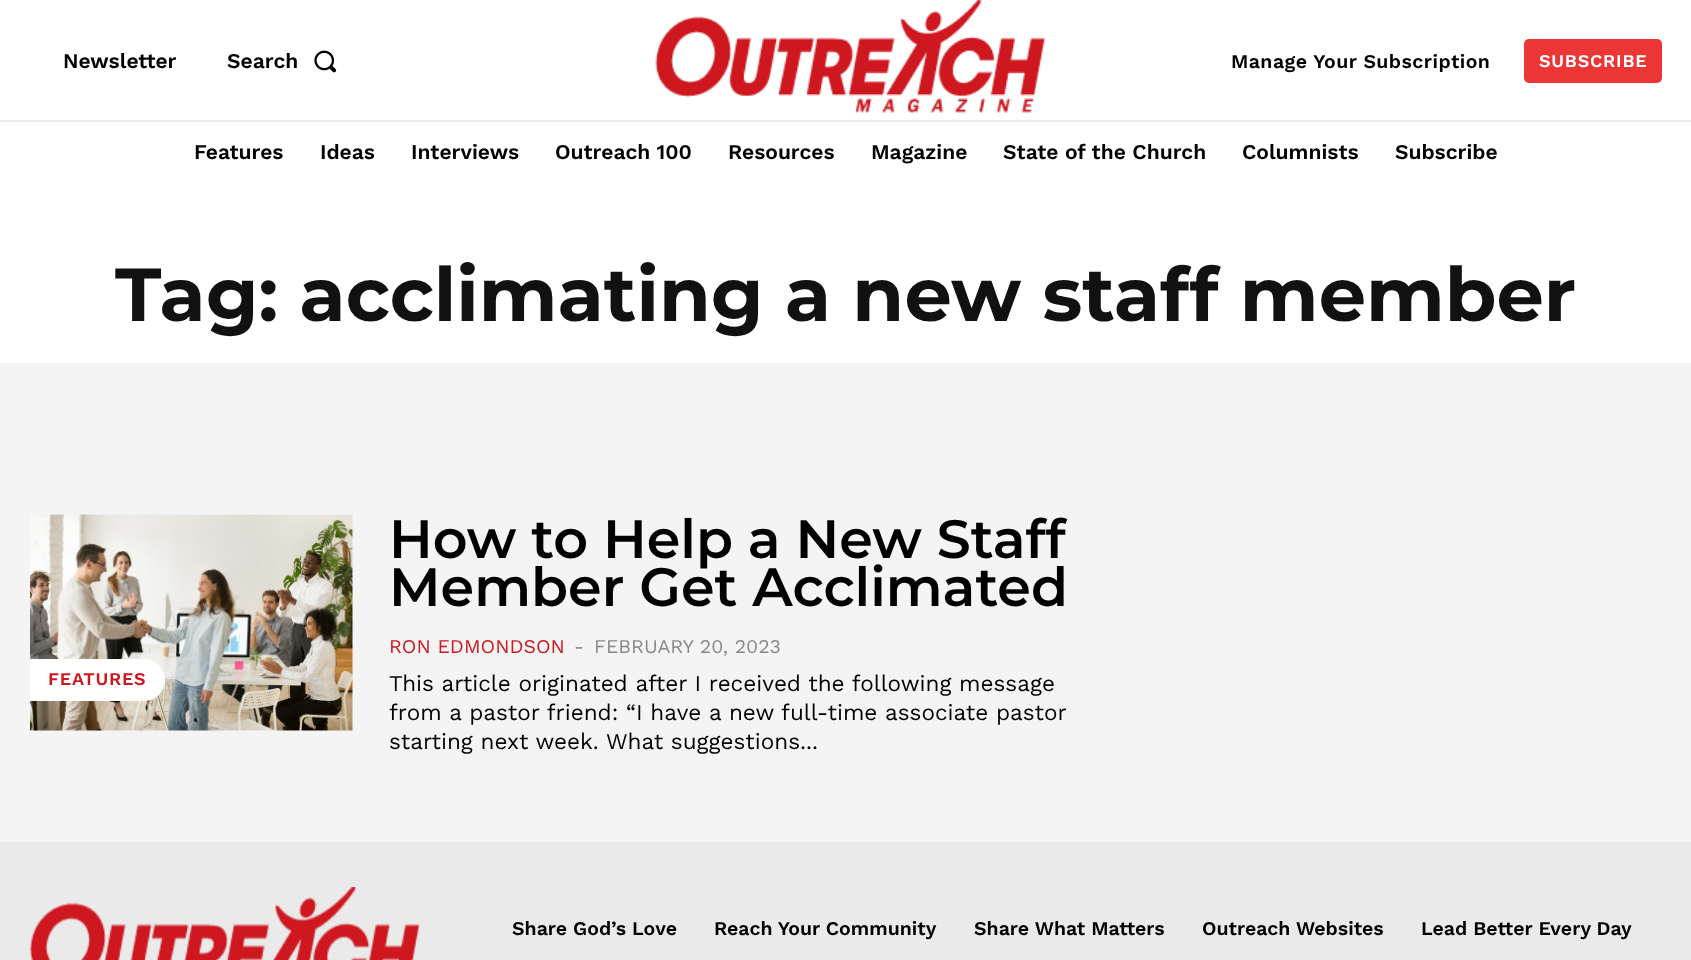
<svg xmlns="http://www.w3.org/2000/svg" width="1691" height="960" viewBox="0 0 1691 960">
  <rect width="100%" height="100%" fill="rgb(255,255,255)"/>
  <g font-family="Work Sans" font-size="21" font-weight="600" fill="rgb(0,0,0)">
    <text x="63" y="68">Newsletter</text>
    <text x="227" y="68">Search</text>
  </g>
  <image x="314" y="50" width="23" height="23" href="pic1.png"/>
  <image x="655" y="0" width="391" height="113" href="pic2.png"/>
  <text x="1231" y="68" font-family="Work Sans" font-size="19.5" font-weight="600" letter-spacing="0.45" fill="rgb(0,0,0)">Manage Your Subscription</text>
  <rect x="1524" y="39" width="138" height="44" rx="5" fill="rgb(236,53,53)"/>
  <text x="1539" y="67" font-family="Work Sans" font-size="18" font-weight="600" letter-spacing="0.75" fill="rgb(255,255,255)">SUBSCRIBE</text>
  <rect x="0" y="120" width="1691" height="2" fill="rgb(234,234,234)"/>
  <g font-family="Work Sans" font-size="21" font-weight="600" fill="rgb(0,0,0)">
    <text x="194" y="159">Features</text>
    <text x="320" y="159">Ideas</text>
    <text x="411" y="159">Interviews</text>
    <text x="555" y="159">Outreach 100</text>
    <text x="728" y="159">Resources</text>
    <text x="871" y="159">Magazine</text>
    <text x="1003" y="159">State of the Church</text>
    <text x="1242" y="159">Columnists</text>
    <text x="1395" y="159">Subscribe</text>
  </g>
  <text x="115" y="321" font-family="Montserrat" font-size="75" font-weight="bold" fill="rgb(17,17,17)">Tag: acclimating a new staff member</text>
  <rect x="0" y="363" width="1691" height="479" fill="rgb(244,244,244)"/>
  <image x="30" y="514" width="323" height="217" href="pic3.png"/>
  <path d="M30 659H144C155.5 659 165 668.5 165 680C165 691.5 155.5 701 144 701H30Z" fill="rgb(255,255,255)"/>
  <text x="48" y="685" font-family="Work Sans" font-size="18" font-weight="600" letter-spacing="0.75" fill="rgb(206,23,30)">FEATURES</text>
  <g font-family="Montserrat" font-size="54" font-weight="600" fill="rgb(0,0,0)">
    <text>
      <tspan x="389" y="558">How to Help a New Staff</tspan>
      <tspan x="389" y="606">Member Get Acclimated</tspan>
    </text>
  </g>
  <text x="389" y="653" font-family="Work Sans" font-size="19.5" fill="rgb(206,23,30)">RON EDMONDSON</text>
  <g font-family="Work Sans" font-size="19.5" fill="rgb(136,136,136)">
    <text x="574" y="653">-</text>
    <text x="594" y="653">FEBRUARY 20, 2023</text>
  </g>
  <g font-family="Work Sans" font-size="22.5" fill="rgb(0,0,0)">
    <text>
      <tspan x="389" y="691">This article originated after I received the following message</tspan>
      <tspan x="389" y="720">from a pastor friend: “I have a new full-time associate pastor</tspan>
      <tspan x="389" y="749">starting next week. What suggestions...</tspan>
    </text>
  </g>
  <rect x="0" y="842" width="1691" height="118" fill="rgb(234,234,234)"/>
  <image x="30" y="887" width="390" height="73" href="pic4.png"/>
  <g font-family="Work Sans" font-size="19.5" font-weight="600" fill="rgb(0,0,0)">
    <text x="512" y="935">Share God’s Love</text>
    <text x="714" y="935">Reach Your Community</text>
    <text x="974" y="935">Share What Matters</text>
    <text x="1202" y="935">Outreach Websites</text>
    <text x="1421" y="935">Lead Better Every Day</text>
  </g>
</svg>
